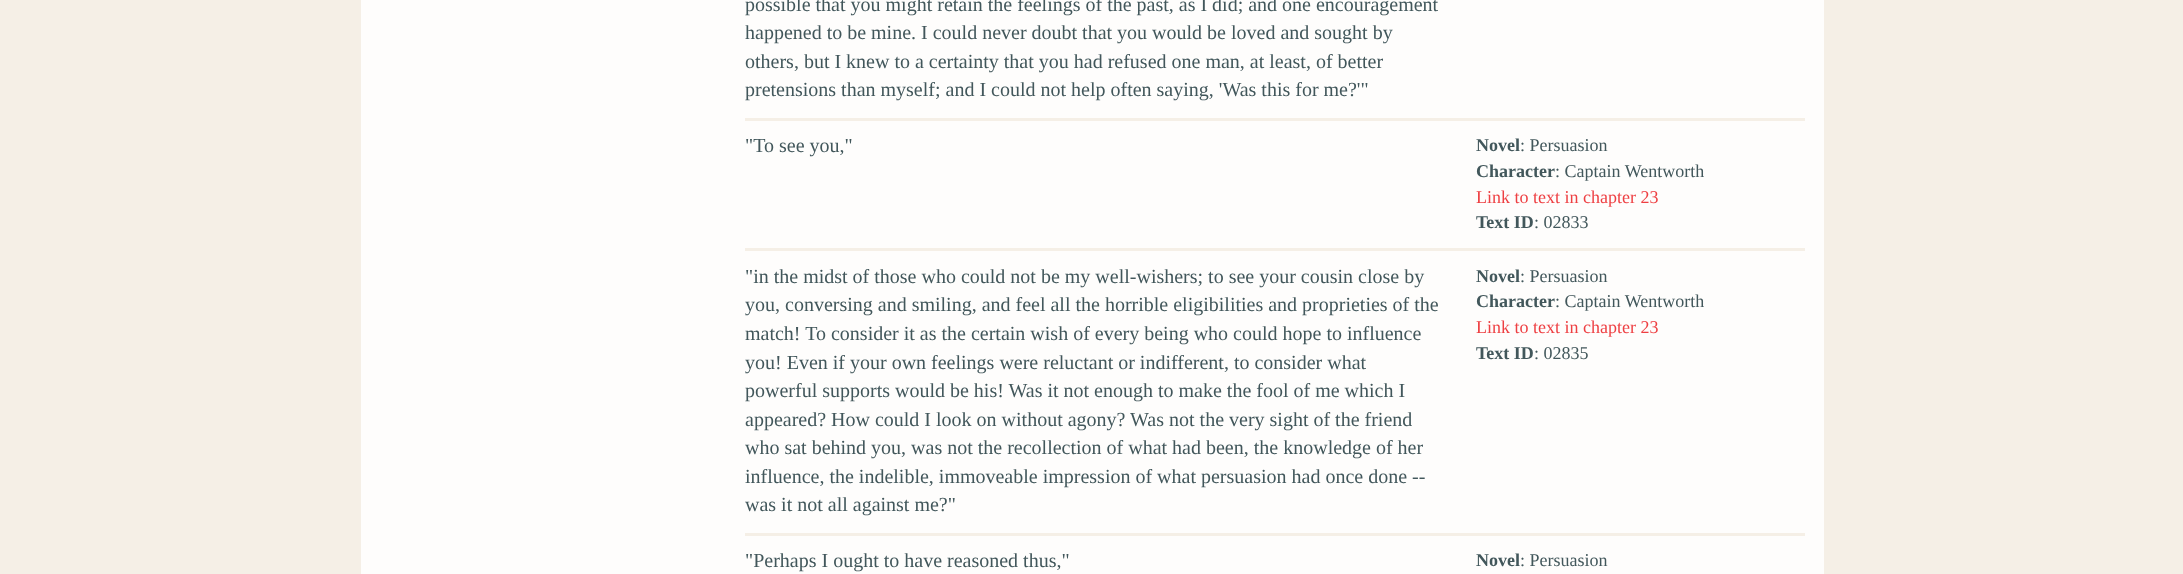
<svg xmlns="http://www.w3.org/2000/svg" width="2183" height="574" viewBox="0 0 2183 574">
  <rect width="100%" height="100%" fill="rgb(245,239,230)"/>
  <rect x="361" y="0" width="1463" height="574" fill="rgb(254,253,252)"/>
  <rect x="745" y="118" width="1060" height="3" fill="rgb(245,239,230)"/>
  <g font-family="Liberation Serif" font-size="20" fill="rgb(66,87,91)">
    <text>
      <tspan x="745" y="11">possible that you might retain the feelings of the past, as I did; and one encouragement</tspan>
      <tspan x="745" y="39">happened to be mine. I could never doubt that you would be loved and sought by</tspan>
      <tspan x="745" y="68">others, but I knew to a certainty that you had refused one man, at least, of better</tspan>
      <tspan x="745" y="96">pretensions than myself; and I could not help often saying, 'Was this for me?'"</tspan>
    </text>
  </g>
  <rect x="745" y="248" width="1060" height="3" fill="rgb(245,239,230)"/>
  <text x="745" y="152" font-family="Liberation Serif" font-size="20" fill="rgb(66,87,91)">"To see you,"</text>
  <text x="1476" y="151" font-family="Liberation Serif" font-size="18" font-weight="bold" fill="rgb(66,87,91)">Novel</text>
  <text x="1520" y="151" font-family="Liberation Serif" font-size="18" fill="rgb(66,87,91)">: Persuasion</text>
  <text x="1476" y="177" font-family="Liberation Serif" font-size="18" font-weight="bold" fill="rgb(66,87,91)">Character</text>
  <text x="1555" y="177" font-family="Liberation Serif" font-size="18" fill="rgb(66,87,91)">: Captain Wentworth</text>
  <text x="1476" y="203" font-family="Liberation Serif" font-size="18" fill="rgb(238,63,66)">Link to text in chapter 23</text>
  <text x="1476" y="228" font-family="Liberation Serif" font-size="18" font-weight="bold" fill="rgb(66,87,91)">Text ID</text>
  <text x="1534" y="228" font-family="Liberation Serif" font-size="18" fill="rgb(66,87,91)">: 02833</text>
  <rect x="745" y="533" width="1060" height="3" fill="rgb(245,239,230)"/>
  <g font-family="Liberation Serif" font-size="20" fill="rgb(66,87,91)">
    <text>
      <tspan x="745" y="283">"in the midst of those who could not be my well-wishers; to see your cousin close by</tspan>
      <tspan x="745" y="311">you, conversing and smiling, and feel all the horrible eligibilities and proprieties of the</tspan>
      <tspan x="745" y="340">match! To consider it as the certain wish of every being who could hope to influence</tspan>
      <tspan x="745" y="369">you! Even if your own feelings were reluctant or indifferent, to consider what</tspan>
      <tspan x="745" y="397">powerful supports would be his! Was it not enough to make the fool of me which I</tspan>
      <tspan x="745" y="426">appeared? How could I look on without agony? Was not the very sight of the friend</tspan>
      <tspan x="745" y="454">who sat behind you, was not the recollection of what had been, the knowledge of her</tspan>
      <tspan x="745" y="483">influence, the indelible, immoveable impression of what persuasion had once done --</tspan>
      <tspan x="745" y="511">was it not all against me?"</tspan>
    </text>
  </g>
  <text x="1476" y="282" font-family="Liberation Serif" font-size="18" font-weight="bold" fill="rgb(66,87,91)">Novel</text>
  <text x="1520" y="282" font-family="Liberation Serif" font-size="18" fill="rgb(66,87,91)">: Persuasion</text>
  <text x="1476" y="307" font-family="Liberation Serif" font-size="18" font-weight="bold" fill="rgb(66,87,91)">Character</text>
  <text x="1555" y="307" font-family="Liberation Serif" font-size="18" fill="rgb(66,87,91)">: Captain Wentworth</text>
  <text x="1476" y="333" font-family="Liberation Serif" font-size="18" fill="rgb(238,63,66)">Link to text in chapter 23</text>
  <text x="1476" y="359" font-family="Liberation Serif" font-size="18" font-weight="bold" fill="rgb(66,87,91)">Text ID</text>
  <text x="1534" y="359" font-family="Liberation Serif" font-size="18" fill="rgb(66,87,91)">: 02835</text>
  <text x="745" y="567" font-family="Liberation Serif" font-size="20" fill="rgb(66,87,91)">"Perhaps I ought to have reasoned thus,"</text>
  <text x="1476" y="566" font-family="Liberation Serif" font-size="18" font-weight="bold" fill="rgb(66,87,91)">Novel</text>
  <text x="1520" y="566" font-family="Liberation Serif" font-size="18" fill="rgb(66,87,91)">: Persuasion</text>
</svg>
